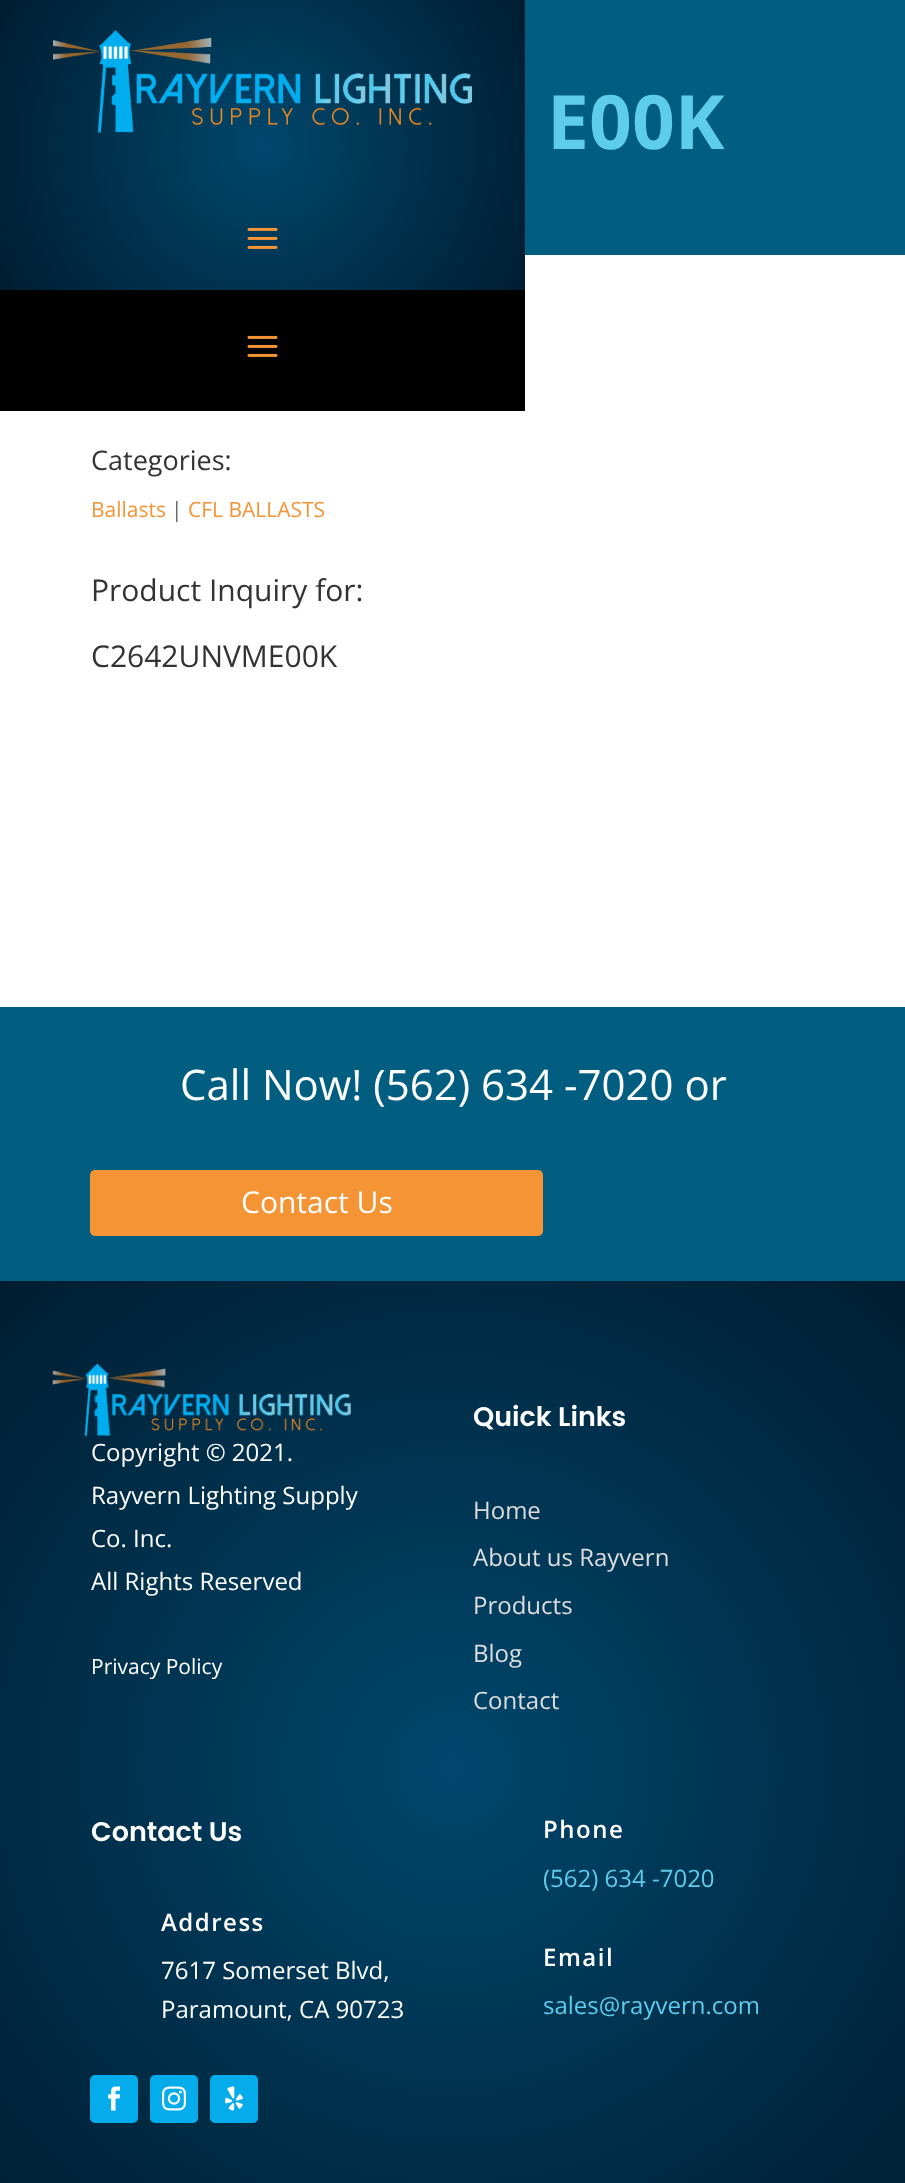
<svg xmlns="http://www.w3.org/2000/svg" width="905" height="2183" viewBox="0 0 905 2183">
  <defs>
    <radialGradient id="g1" gradientUnits="userSpaceOnUse" cx="263" cy="145" r="300"><stop offset="0" stop-color="rgb(0,71,109)"/><stop offset="1" stop-color="rgb(0,29,48)"/></radialGradient>
    <radialGradient id="g2" gradientUnits="userSpaceOnUse" cx="453" cy="1768" r="665"><stop offset="0" stop-color="rgb(0,71,109)"/><stop offset="1" stop-color="rgb(0,29,48)"/></radialGradient>
  </defs>
  <rect width="100%" height="100%" fill="rgb(255,255,255)"/>
  <rect x="0" y="0" width="525" height="290" fill="url(#g1)"/>
  <image x="53" y="30" width="419" height="103" href="pic1.png"/>
  <image x="247" y="227" width="31" height="22" href="pic2.png"/>
  <rect x="0" y="290" width="525" height="121" fill="rgb(0,0,0)"/>
  <image x="247" y="335" width="31" height="22" href="pic3.png"/>
  <rect x="525" y="0" width="380" height="255" fill="rgb(1,94,129)"/>
  <text x="547" y="149" font-family="Open Sans" font-size="75" font-weight="bold" fill="rgb(94,204,235)">E00K</text>
  <text x="91" y="470" font-family="Open Sans" font-size="27" fill="rgb(51,51,51)">Categories:</text>
  <text x="91" y="517" font-family="Open Sans" font-size="21" fill="rgb(244,148,53)">Ballasts</text>
  <text x="171" y="517" font-family="Open Sans" font-size="21" fill="rgb(102,102,102)">|</text>
  <text x="188" y="517" font-family="Open Sans" font-size="21" fill="rgb(244,148,53)">CFL BALLASTS</text>
  <g font-family="Open Sans" font-size="30" fill="rgb(51,51,51)">
    <text x="91" y="601">Product Inquiry for:</text>
    <text x="91" y="667">C2642UNVME00K</text>
  </g>
  <rect x="0" y="1007" width="905" height="274" fill="rgb(1,94,129)"/>
  <text x="180" y="1100" font-family="Open Sans" font-size="42" fill="rgb(255,255,255)">Call Now! (562) 634 -7020 or</text>
  <rect x="90" y="1170" width="453" height="66" rx="5" fill="rgb(244,148,53)"/>
  <text x="241" y="1213" font-family="Open Sans" font-size="30" fill="rgb(255,255,255)">Contact Us</text>
  <rect x="0" y="1281" width="905" height="902" fill="url(#g2)"/>
  <image x="52" y="1363" width="299" height="74" href="pic4.png"/>
  <g font-family="Open Sans" font-size="24" fill="rgb(255,255,255)">
    <text>
      <tspan x="91" y="1461">Copyright © 2021.</tspan>
      <tspan x="91" y="1504">Rayvern Lighting Supply</tspan>
      <tspan x="91" y="1547">Co. Inc.</tspan>
      <tspan x="91" y="1590">All Rights Reserved</tspan>
    </text>
  </g>
  <text x="91" y="1674" font-family="Open Sans" font-size="21" fill="rgb(255,255,255)">Privacy Policy</text>
  <text x="473" y="1426" font-family="Poppins" font-size="27" font-weight="600" fill="rgb(255,255,255)">Quick Links</text>
  <g font-family="Open Sans" font-size="24" fill="rgb(221,221,221)">
    <text>
      <tspan x="473" y="1519">Home</tspan>
      <tspan x="473" y="1566">About us Rayvern</tspan>
    </text>
    <text x="473" y="1614">Products</text>
    <text>
      <tspan x="473" y="1662">Blog</tspan>
      <tspan x="473" y="1709">Contact</tspan>
    </text>
  </g>
  <text x="91" y="1841" font-family="Poppins" font-size="27" font-weight="600" fill="rgb(255,255,255)">Contact Us</text>
  <text x="161" y="1931" font-family="Open Sans" font-size="24" font-weight="600" letter-spacing="1.5" fill="rgb(255,255,255)">Address</text>
  <g font-family="Open Sans" font-size="24" fill="rgb(255,255,255)">
    <text>
      <tspan x="161" y="1979">7617 Somerset Blvd,</tspan>
      <tspan x="161" y="2018">Paramount, CA 90723</tspan>
    </text>
  </g>
  <rect x="90" y="2075" width="48" height="48" rx="5" fill="rgb(4,172,236)"/>
  <image x="108" y="2086" width="13" height="25" href="pic5.png"/>
  <rect x="150" y="2075" width="48" height="48" rx="5" fill="rgb(4,172,236)"/>
  <image x="162" y="2086" width="24" height="25" href="pic6.png"/>
  <rect x="210" y="2075" width="48" height="48" rx="5" fill="rgb(4,172,236)"/>
  <image x="225" y="2086" width="18" height="25" href="pic7.png"/>
  <text x="543" y="1838" font-family="Open Sans" font-size="24" font-weight="600" letter-spacing="1.5" fill="rgb(255,255,255)">Phone</text>
  <text x="543" y="1887" font-family="Open Sans" font-size="24" fill="rgb(94,204,235)">(562) 634 -7020</text>
  <text x="543" y="1966" font-family="Open Sans" font-size="24" font-weight="600" letter-spacing="1.5" fill="rgb(255,255,255)">Email</text>
  <text x="543" y="2014" font-family="Open Sans" font-size="24" fill="rgb(94,204,235)">sales@rayvern.com</text>
</svg>
